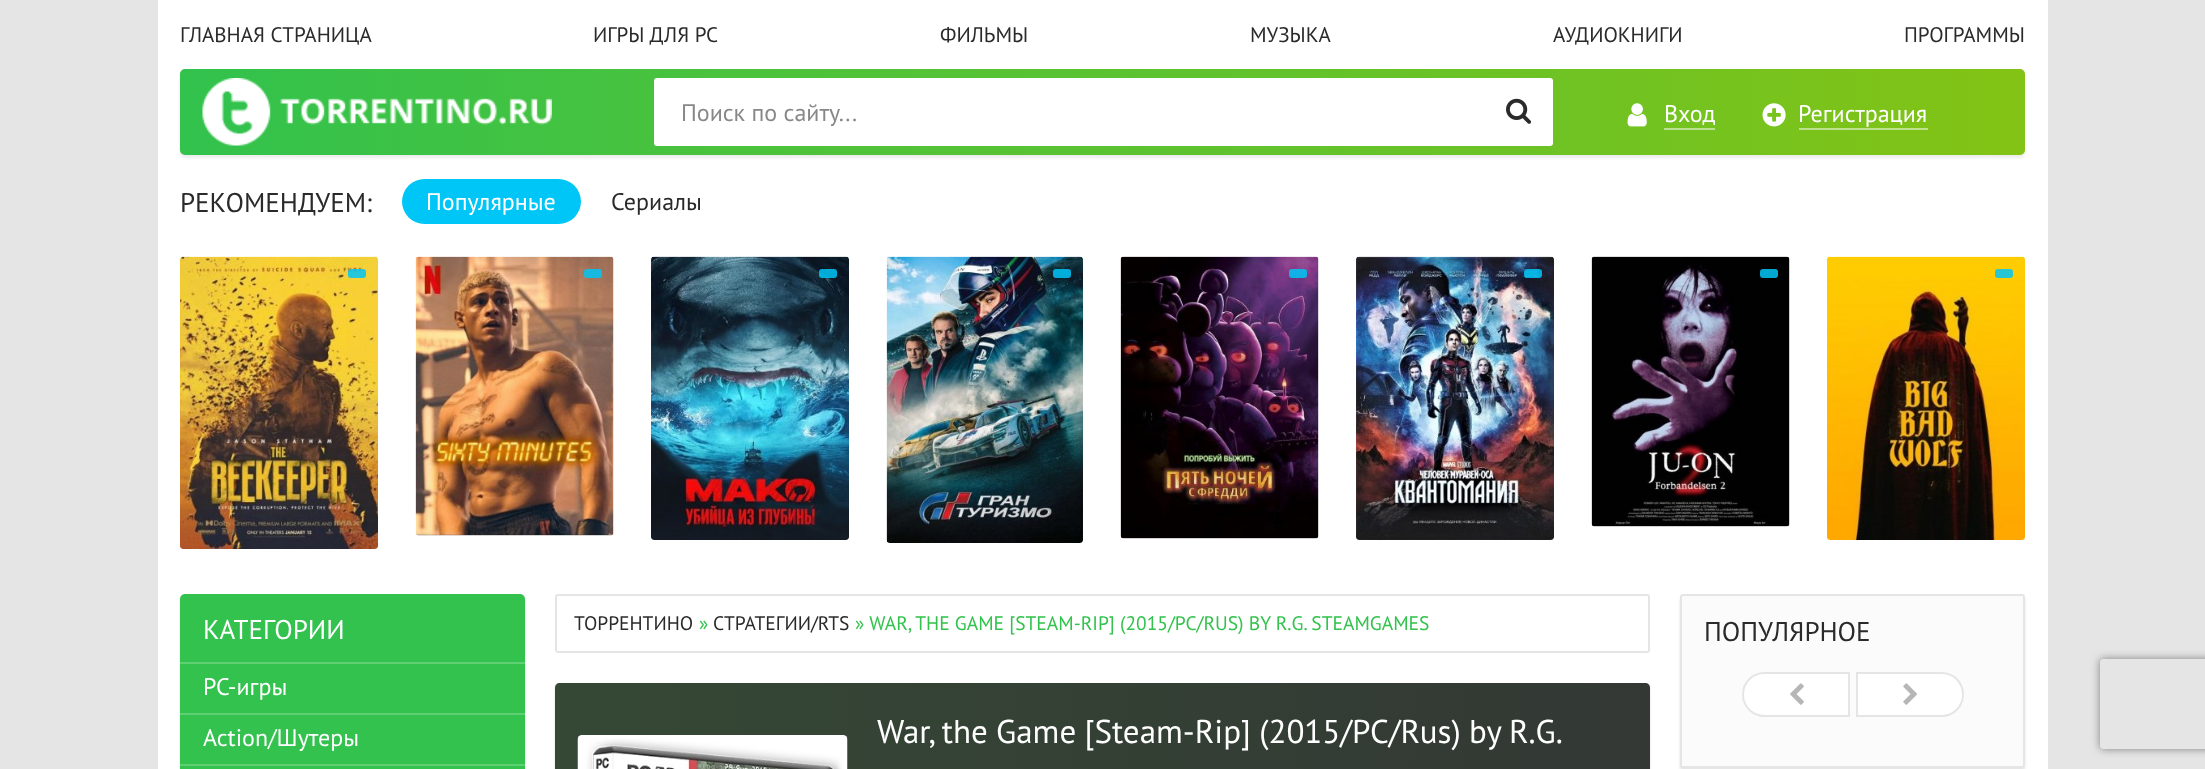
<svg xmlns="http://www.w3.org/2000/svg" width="2205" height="769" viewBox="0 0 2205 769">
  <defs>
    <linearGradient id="g1" gradientUnits="userSpaceOnUse" x1="180" y1="112" x2="2025" y2="112"><stop offset="0" stop-color="rgb(50,194,77)"/><stop offset="1" stop-color="rgb(131,195,21)"/></linearGradient>
    <linearGradient id="g2" gradientUnits="userSpaceOnUse" x1="180" y1="112" x2="2025" y2="112"><stop offset="0" stop-color="rgb(153,225,166)"/><stop offset="1" stop-color="rgb(193,225,138)"/></linearGradient>
    <linearGradient id="g3" gradientUnits="userSpaceOnUse" x1="555" y1="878" x2="1650" y2="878"><stop offset="0" stop-color="rgb(53,72,53)"/><stop offset="1" stop-color="rgb(51,56,52)"/></linearGradient>
    <clipPath id="clip1"><path d="M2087 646H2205V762H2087ZM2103 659H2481C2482.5 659 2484 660.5 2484 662V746C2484 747.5 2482.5 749 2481 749H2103C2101.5 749 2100 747.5 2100 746V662C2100 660.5 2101.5 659 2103 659Z" clip-rule="evenodd"/></clipPath>
  </defs>
  <rect width="100%" height="100%" fill="rgb(229,229,229)"/>
  <rect x="158" y="0" width="1890" height="769" fill="rgb(255,255,255)"/>
  <g font-family="PT Sans" font-size="21" fill="rgb(42,42,42)">
    <text x="180" y="42">ГЛАВНАЯ СТРАНИЦА</text>
    <text x="593" y="42">ИГРЫ ДЛЯ PC</text>
    <text x="940" y="42">ФИЛЬМЫ</text>
    <text x="1250" y="42">МУЗЫКА</text>
    <text x="1553" y="42">АУДИОКНИГИ</text>
    <text x="1904" y="42">ПРОГРАММЫ</text>
  </g>
  <rect x="180" y="72" width="1845" height="86" rx="5" fill="rgba(68,68,68,0.1)" filter="blur(1.5px)"/>
  <rect x="180" y="69" width="1845" height="86" rx="5" fill="url(#g1)"/>
  <rect x="1799" y="128" width="129" height="2" fill="url(#g2)"/>
  <image x="202" y="78" width="350" height="68" href="pic1.png"/>
  <rect x="654" y="78" width="899" height="68" rx="3" fill="rgb(255,255,255)"/>
  <text x="681" y="121" font-family="PT Sans" font-size="24" fill="rgb(136,136,136)">Поиск по сайту...</text>
  <image x="1506" y="98" width="25" height="26" href="pic2.png"/>
  <image x="1627" y="103" width="20" height="24" href="pic3.png"/>
  <text x="1664" y="122" font-family="PT Sans" font-size="24" fill="rgb(255,255,255)">Вход</text>
  <rect x="1664" y="128" width="51" height="2" fill="rgb(186,225,143)"/>
  <image x="1762" y="103" width="24" height="24" href="pic4.png"/>
  <text x="1798" y="122" font-family="PT Sans" font-size="24" fill="rgb(255,255,255)">Регистрация</text>
  <text x="180" y="212" font-family="PT Sans" font-size="27" fill="rgb(42,42,42)">РЕКОМЕНДУЕМ:</text>
  <rect x="402" y="179" width="179" height="45" rx="22.5" fill="rgb(0,198,247)"/>
  <text x="426" y="210" font-family="PT Sans" font-size="24" fill="rgb(255,255,255)">Популярные</text>
  <text x="611" y="210" font-family="PT Sans" font-size="24" fill="rgb(42,42,42)">Сериалы</text>
  <rect x="180" y="257" width="198" height="292" rx="3" fill="rgb(241,241,241)"/>
  <image x="180" y="256" width="198" height="293" href="pic5.png"/>
  <rect x="348" y="269" width="18" height="9" rx="3" fill="rgba(0,198,247,0.85)"/>
  <rect x="416" y="257" width="198" height="279" rx="3" fill="rgb(241,241,241)"/>
  <image x="415" y="256" width="199" height="280" href="pic6.png"/>
  <rect x="584" y="269" width="18" height="9" rx="3" fill="rgba(0,198,247,0.85)"/>
  <rect x="651" y="257" width="198" height="283" rx="3" fill="rgb(241,241,241)"/>
  <image x="651" y="256" width="198" height="284" href="pic7.png"/>
  <rect x="819" y="269" width="18" height="9" rx="3" fill="rgba(0,198,247,0.85)"/>
  <rect x="887" y="257" width="196" height="286" rx="3" fill="rgb(241,241,241)"/>
  <image x="886" y="256" width="197" height="287" href="pic8.png"/>
  <rect x="1053" y="269" width="18" height="9" rx="3" fill="rgba(0,198,247,0.85)"/>
  <rect x="1121" y="257" width="198" height="282" rx="3" fill="rgb(241,241,241)"/>
  <image x="1120" y="256" width="199" height="283" href="pic9.png"/>
  <rect x="1289" y="269" width="18" height="9" rx="3" fill="rgba(0,198,247,0.85)"/>
  <rect x="1356" y="257" width="198" height="283" rx="3" fill="rgb(241,241,241)"/>
  <image x="1356" y="256" width="198" height="284" href="pic10.png"/>
  <rect x="1524" y="269" width="18" height="9" rx="3" fill="rgba(0,198,247,0.85)"/>
  <rect x="1592" y="257" width="198" height="270" rx="3" fill="rgb(241,241,241)"/>
  <image x="1591" y="256" width="199" height="271" href="pic11.png"/>
  <rect x="1760" y="269" width="18" height="9" rx="3" fill="rgb(0,168,210)"/>
  <rect x="1827" y="257" width="198" height="283" rx="3" fill="rgb(241,241,241)"/>
  <image x="1827" y="256" width="198" height="284" href="pic12.png"/>
  <rect x="1995" y="269" width="18" height="9" rx="3" fill="rgb(38,199,210)"/>
  <rect x="180" y="597" width="345" height="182" rx="5" fill="rgba(0,0,0,0.1)" filter="blur(1.5px)"/>
  <rect x="180" y="594" width="345" height="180" rx="5" fill="rgb(50,194,77)"/>
  <text x="203" y="639" font-family="PT Sans" font-size="27" fill="rgb(255,255,255)">КАТЕГОРИИ</text>
  <rect x="180" y="662" width="345" height="2" fill="rgb(95,207,116)"/>
  <rect x="180" y="713" width="345" height="2" fill="rgb(95,207,116)"/>
  <text x="203" y="695" font-family="PT Sans" font-size="24" fill="rgb(255,255,255)">PC-игры</text>
  <rect x="180" y="764" width="345" height="2" fill="rgb(95,207,116)"/>
  <text x="203" y="746" font-family="PT Sans" font-size="24" fill="rgb(255,255,255)">Action/Шутеры</text>
  <rect x="556" y="595" width="1093" height="57" rx="2" fill="none" stroke="rgb(229,229,229)" stroke-width="2"/>
  <text x="574" y="630" font-family="PT Sans" font-size="19.5" fill="rgb(42,42,42)">ТОРРЕНТИНО</text>
  <text x="699" y="630" font-family="PT Sans" font-size="19.5" fill="rgb(50,194,77)">»</text>
  <text x="713" y="630" font-family="PT Sans" font-size="19.5" fill="rgb(42,42,42)">СТРАТЕГИИ/RTS</text>
  <text x="855" y="630" font-family="PT Sans" font-size="19.5" fill="rgb(50,194,77)">» WAR, THE GAME [STEAM-RIP] (2015/PC/RUS) BY R.G. STEAMGAMES</text>
  <rect x="555" y="686" width="1095" height="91" rx="3" fill="rgba(0,0,0,0.1)" filter="blur(1.5px)"/>
  <rect x="556" y="684" width="1093" height="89" rx="2" fill="none" stroke="rgb(229,229,229)" stroke-width="2"/>
  <path d="M560 683H1645C1648 683 1650 685 1650 688V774H555V688C555 685 557 683 560 683Z" fill="url(#g3)"/>
  <image x="577" y="735" width="271" height="34" href="pic13.png"/>
  <text x="877" y="743" word-spacing="-0.5" font-family="PT Sans" font-size="33" fill="rgb(255,255,255)">War, the Game [Steam-Rip] (2015/PC/Rus) by R.G.</text>
  <rect x="1680" y="597" width="345" height="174" rx="3" fill="rgba(0,0,0,0.1)" filter="blur(1.5px)"/>
  <rect x="1681" y="595" width="343" height="172" rx="2" fill="rgb(251,251,251)" stroke="rgb(229,229,229)" stroke-width="2"/>
  <text x="1704" y="641" font-family="PT Sans" font-size="27" fill="rgb(42,42,42)">ПОПУЛЯРНОЕ</text>
  <path d="M1764.5 673H1849V716H1764.5C1752.5 716 1743 706.5 1743 694.5C1743 682.5 1752.5 673 1764.5 673Z" fill="rgb(255,255,255)" stroke="rgb(229,229,229)" stroke-width="2"/>
  <image x="1790" y="683" width="14" height="22" href="pic14.png"/>
  <path d="M1857 673H1941.5C1953.5 673 1963 682.5 1963 694.5C1963 706.5 1953.5 716 1941.5 716H1857Z" fill="rgb(255,255,255)" stroke="rgb(229,229,229)" stroke-width="2"/>
  <image x="1903" y="683" width="14" height="22" href="pic15.png"/>
  <g clip-path="url(#clip1)">
    <rect x="2100" y="659" width="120" height="90" rx="3" fill="rgb(128,128,128)" filter="blur(4px)"/>
  </g>
</svg>
